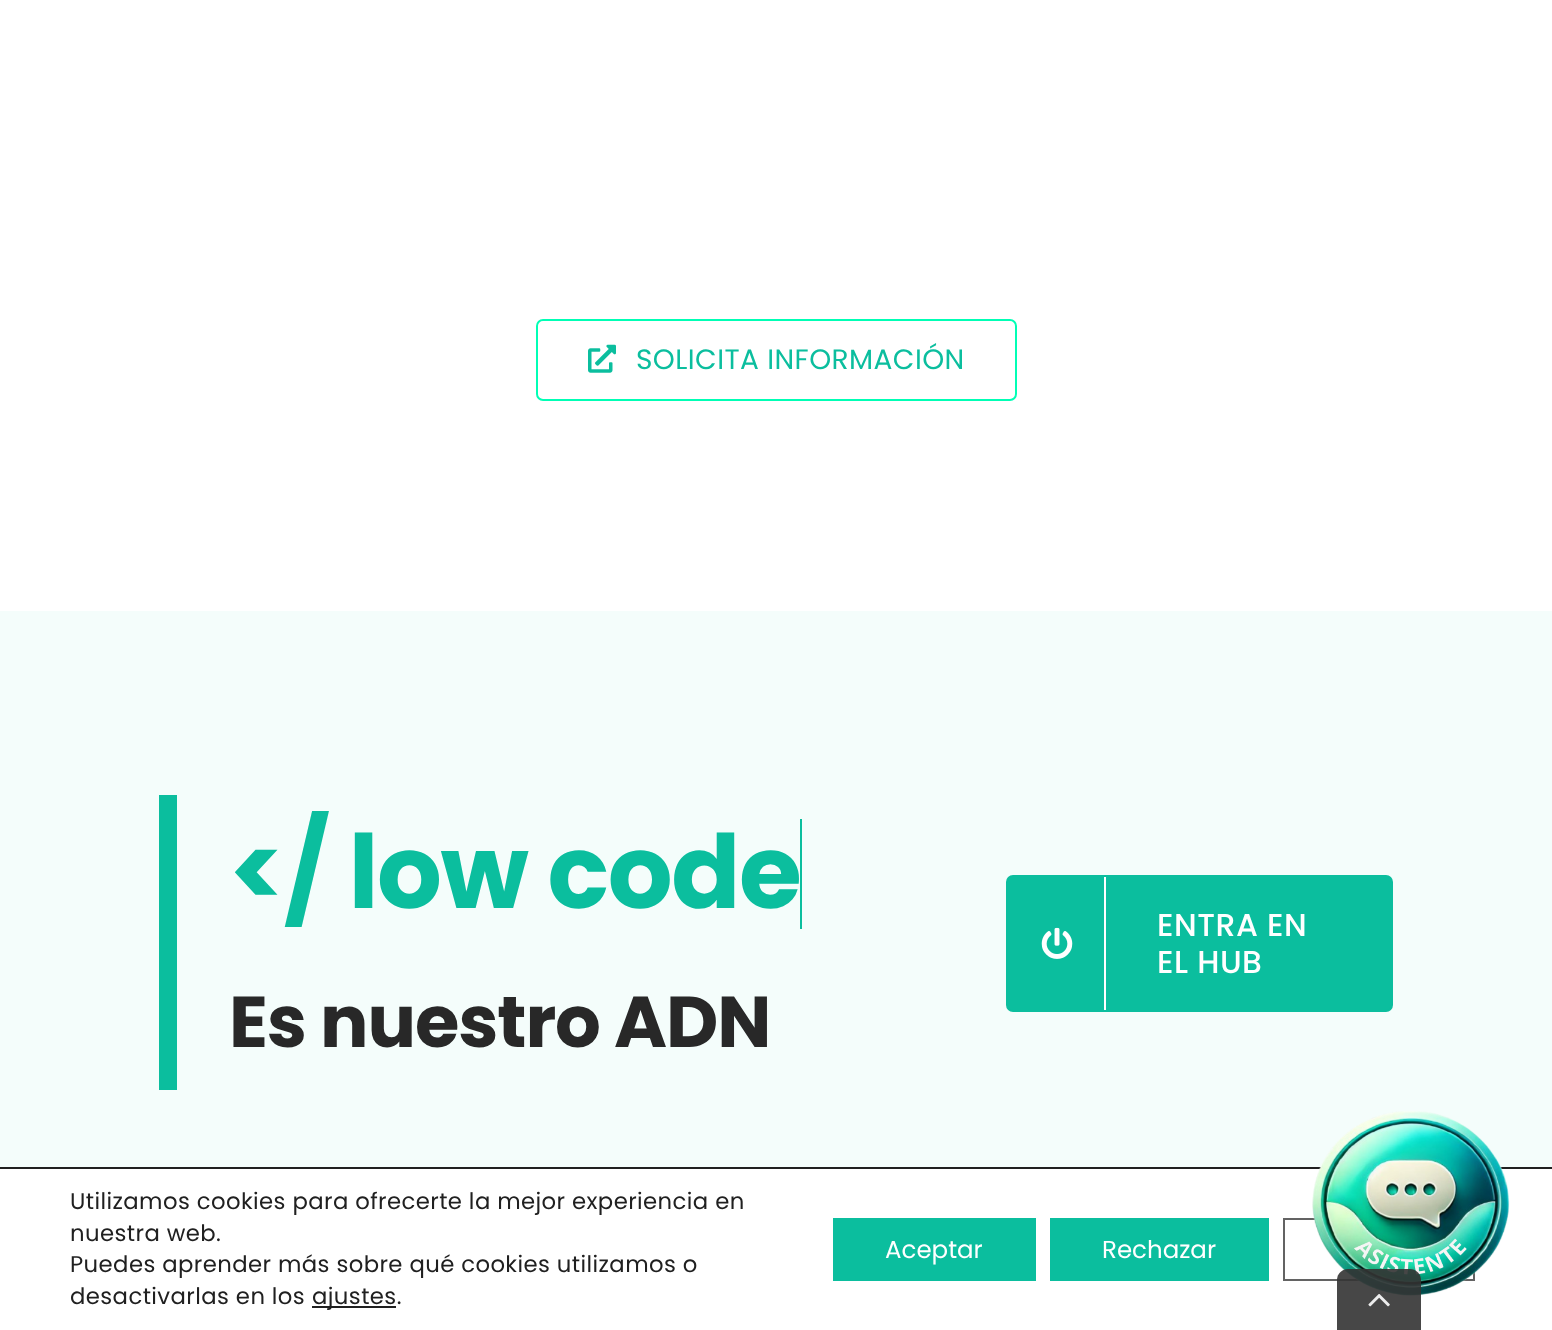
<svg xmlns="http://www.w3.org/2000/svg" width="1552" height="1330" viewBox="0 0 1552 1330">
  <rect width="100%" height="100%" fill="rgb(255,255,255)"/>
  <rect x="537" y="320" width="479" height="80" rx="6" fill="none" stroke="rgb(0,255,181)" stroke-width="2"/>
  <image x="588" y="344" width="28" height="29" href="pic1.png"/>
  <text x="636" y="369" font-family="Poppins" font-size="28" letter-spacing="0.42" fill="rgb(11,190,158)">SOLICITA INFORMACIÓN</text>
  <rect x="0" y="611" width="1552" height="556" fill="rgb(244,253,251)"/>
  <rect x="159" y="795" width="18" height="295" fill="rgb(11,190,158)"/>
  <text x="229" y="908" font-family="Poppins" font-size="102" font-weight="bold" letter-spacing="-1.5" fill="rgb(11,190,158)">&lt;/ low code</text>
  <rect x="800" y="819" width="2" height="110" fill="rgb(11,190,158)"/>
  <text x="229" y="1047" font-family="Poppins" font-size="72" font-weight="bold" letter-spacing="-1.1" fill="rgb(40,40,40)">Es nuestro ADN</text>
  <rect x="1007" y="876" width="385" height="135" rx="6" fill="rgb(11,190,158)" stroke="rgb(11,190,158)" stroke-width="2"/>
  <rect x="1104" y="877" width="2" height="133" fill="rgb(255,255,255)"/>
  <image x="1041" y="927" width="32" height="32" href="pic2.png"/>
  <g font-family="Poppins" font-size="31.5" font-weight="500" letter-spacing="0.5" fill="rgb(255,255,255)">
    <text>
      <tspan x="1157" y="936">ENTRA EN</tspan>
      <tspan x="1157" y="973">EL HUB</tspan>
    </text>
  </g>
  <rect x="0" y="1167" width="1552" height="2" fill="rgb(32,32,32)"/>
  <rect x="1284" y="1219" width="190" height="61" fill="none" stroke="rgb(99,99,99)" stroke-width="2"/>
  <image x="1312" y="1111" width="198" height="185" href="pic3.png"/>
  <g font-family="Poppins" font-size="22.75" letter-spacing="0.42" fill="rgb(32,32,32)">
    <text>
      <tspan x="70" y="1209">Utilizamos cookies para ofrecerte la mejor experiencia en</tspan>
      <tspan x="70" y="1241">nuestra web.</tspan>
      <tspan x="70" y="1272">Puedes aprender más sobre qué cookies utilizamos o</tspan>
      <tspan x="70" y="1304">desactivarlas en los</tspan>
    </text>
  </g>
  <rect x="312" y="1306" width="84" height="2" fill="rgb(32,32,32)"/>
  <text x="312" y="1304" font-family="Poppins" font-size="22.75" letter-spacing="0.42" fill="rgb(32,32,32)">ajustes.</text>
  <rect x="833" y="1218" width="203" height="63" fill="rgb(11,190,158)"/>
  <text x="885" y="1258" font-family="Poppins" font-size="24.5" fill="rgb(255,255,255)">Aceptar</text>
  <rect x="1050" y="1218" width="219" height="63" fill="rgb(11,190,158)"/>
  <text x="1102" y="1258" font-family="Poppins" font-size="24.5" fill="rgb(255,255,255)">Rechazar</text>
  <path d="M1348 1269H1410C1416 1269 1421 1274 1421 1280V1330H1337V1280C1337 1274 1342 1269 1348 1269Z" fill="rgba(51,51,51,0.9)"/>
  <image x="1368" y="1294" width="22" height="13" href="pic4.png"/>
</svg>
